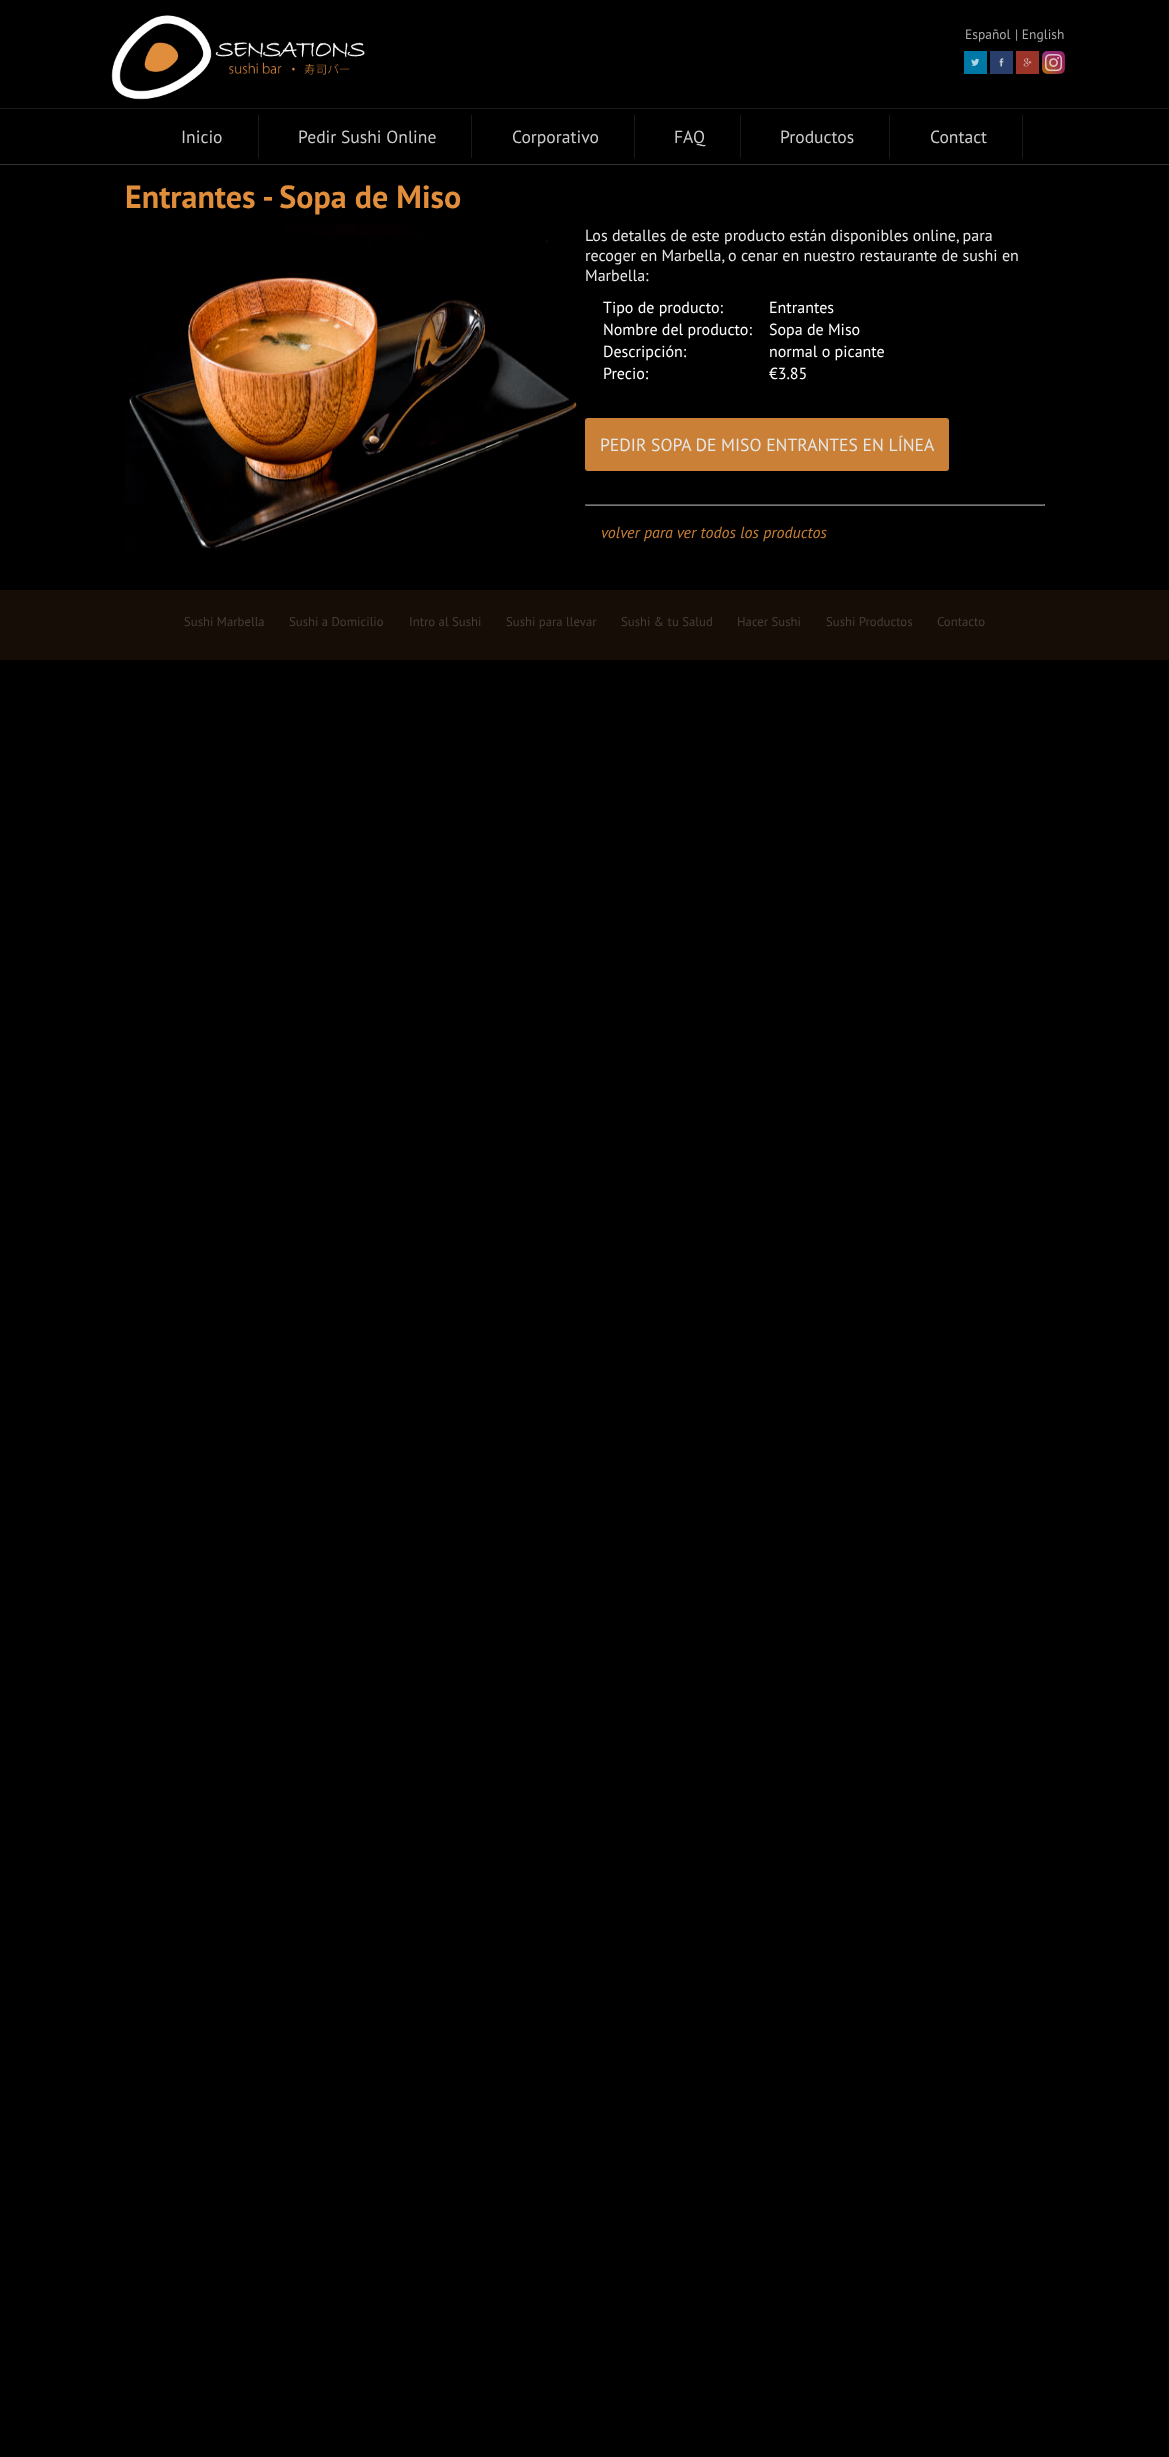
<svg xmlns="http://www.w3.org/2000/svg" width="1169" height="2457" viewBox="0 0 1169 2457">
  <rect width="100%" height="100%" fill="rgb(0,0,0)"/>
  <image x="111" y="15" width="254" height="85" href="pic1.png"/>
  <g font-family="PT Sans" font-size="13.5" fill="rgb(170,170,170)">
    <text x="965" y="39">Español</text>
    <text x="1015" y="39">| English</text>
  </g>
  <image x="964" y="51" width="23" height="23" href="pic2.png"/>
  <image x="990" y="51" width="23" height="23" href="pic3.png"/>
  <image x="1016" y="51" width="23" height="23" href="pic4.png"/>
  <image x="1042" y="51" width="23" height="23" href="pic5.png"/>
  <rect x="0" y="108" width="1169" height="1" fill="rgb(26,26,26)"/>
  <rect x="0" y="164" width="1169" height="1" fill="rgb(51,51,51)"/>
  <rect x="258" y="115" width="1" height="43" fill="rgb(26,26,26)"/>
  <text x="181" y="143" font-family="PT Sans" font-size="17.6" fill="rgb(204,204,204)">Inicio</text>
  <rect x="471" y="115" width="1" height="43" fill="rgb(26,26,26)"/>
  <text x="298" y="143" font-family="PT Sans" font-size="17.6" fill="rgb(204,204,204)">Pedir Sushi Online</text>
  <rect x="634" y="115" width="1" height="43" fill="rgb(26,26,26)"/>
  <text x="512" y="143" font-family="PT Sans" font-size="17.6" fill="rgb(204,204,204)">Corporativo</text>
  <rect x="740" y="115" width="1" height="43" fill="rgb(26,26,26)"/>
  <text x="674" y="143" font-family="PT Sans" font-size="17.6" fill="rgb(204,204,204)">FAQ</text>
  <rect x="889" y="115" width="1" height="43" fill="rgb(26,26,26)"/>
  <text x="780" y="143" font-family="PT Sans" font-size="17.6" fill="rgb(204,204,204)">Productos</text>
  <rect x="1022" y="115" width="1" height="43" fill="rgb(26,26,26)"/>
  <text x="930" y="143" font-family="PT Sans" font-size="17.6" fill="rgb(204,204,204)">Contact</text>
  <text x="125" y="208" font-family="PT Sans" font-size="32" font-weight="bold" fill="rgb(224,142,60)">Entrantes - Sopa de Miso</text>
  <image x="125" y="225" width="454" height="337" href="pic6.png"/>
  <g font-family="PT Sans" font-size="16" fill="rgb(230,230,230)">
    <text>
      <tspan x="585" y="241">Los detalles de este producto están disponibles online, para</tspan>
      <tspan x="585" y="261">recoger en Marbella, o cenar en nuestro restaurante de sushi en</tspan>
      <tspan x="585" y="281">Marbella:</tspan>
    </text>
  </g>
  <g font-family="PT Sans" font-size="16" fill="rgb(255,255,255)">
    <text x="603" y="313">Tipo de producto:</text>
    <text x="769" y="313">Entrantes</text>
    <text x="603" y="335">Nombre del producto:</text>
    <text x="769" y="335">Sopa de Miso</text>
    <text x="603" y="357">Descripción:</text>
    <text x="769" y="357">normal o picante</text>
    <text x="603" y="379">Precio:</text>
    <text x="769" y="379">€3.85</text>
  </g>
  <rect x="585" y="418" width="364" height="53" rx="3" fill="rgb(202,128,54)"/>
  <text x="600" y="451" font-family="PT Sans" font-size="17.6" fill="rgb(230,230,230)">PEDIR SOPA DE MISO ENTRANTES EN LÍNEA</text>
  <rect x="585" y="504" width="460" height="1" fill="rgb(80,80,80)"/>
  <rect x="1044" y="504" width="1" height="2" fill="rgb(119,119,119)"/>
  <rect x="585" y="505" width="460" height="1" fill="rgb(119,119,119)"/>
  <rect x="585" y="504" width="1" height="2" fill="rgb(80,80,80)"/>
  <text x="601" y="538" font-family="PT Sans" font-size="16" font-style="italic" fill="rgb(202,128,54)">volver para ver todos los productos</text>
  <rect x="0" y="590" width="1169" height="70" fill="rgb(22,14,6)"/>
  <g font-family="PT Sans" font-size="12.75" fill="rgb(69,62,56)">
    <text x="184" y="626">Sushi Marbella</text>
    <text x="289" y="626">Sushi a Domicilio</text>
    <text x="409" y="626">Intro al Sushi</text>
    <text x="506" y="626">Sushi para llevar</text>
    <text x="621" y="626">Sushi &amp; tu Salud</text>
    <text x="737" y="626">Hacer Sushi</text>
    <text x="826" y="626">Sushi Productos</text>
    <text x="937" y="626">Contacto</text>
  </g>
</svg>
